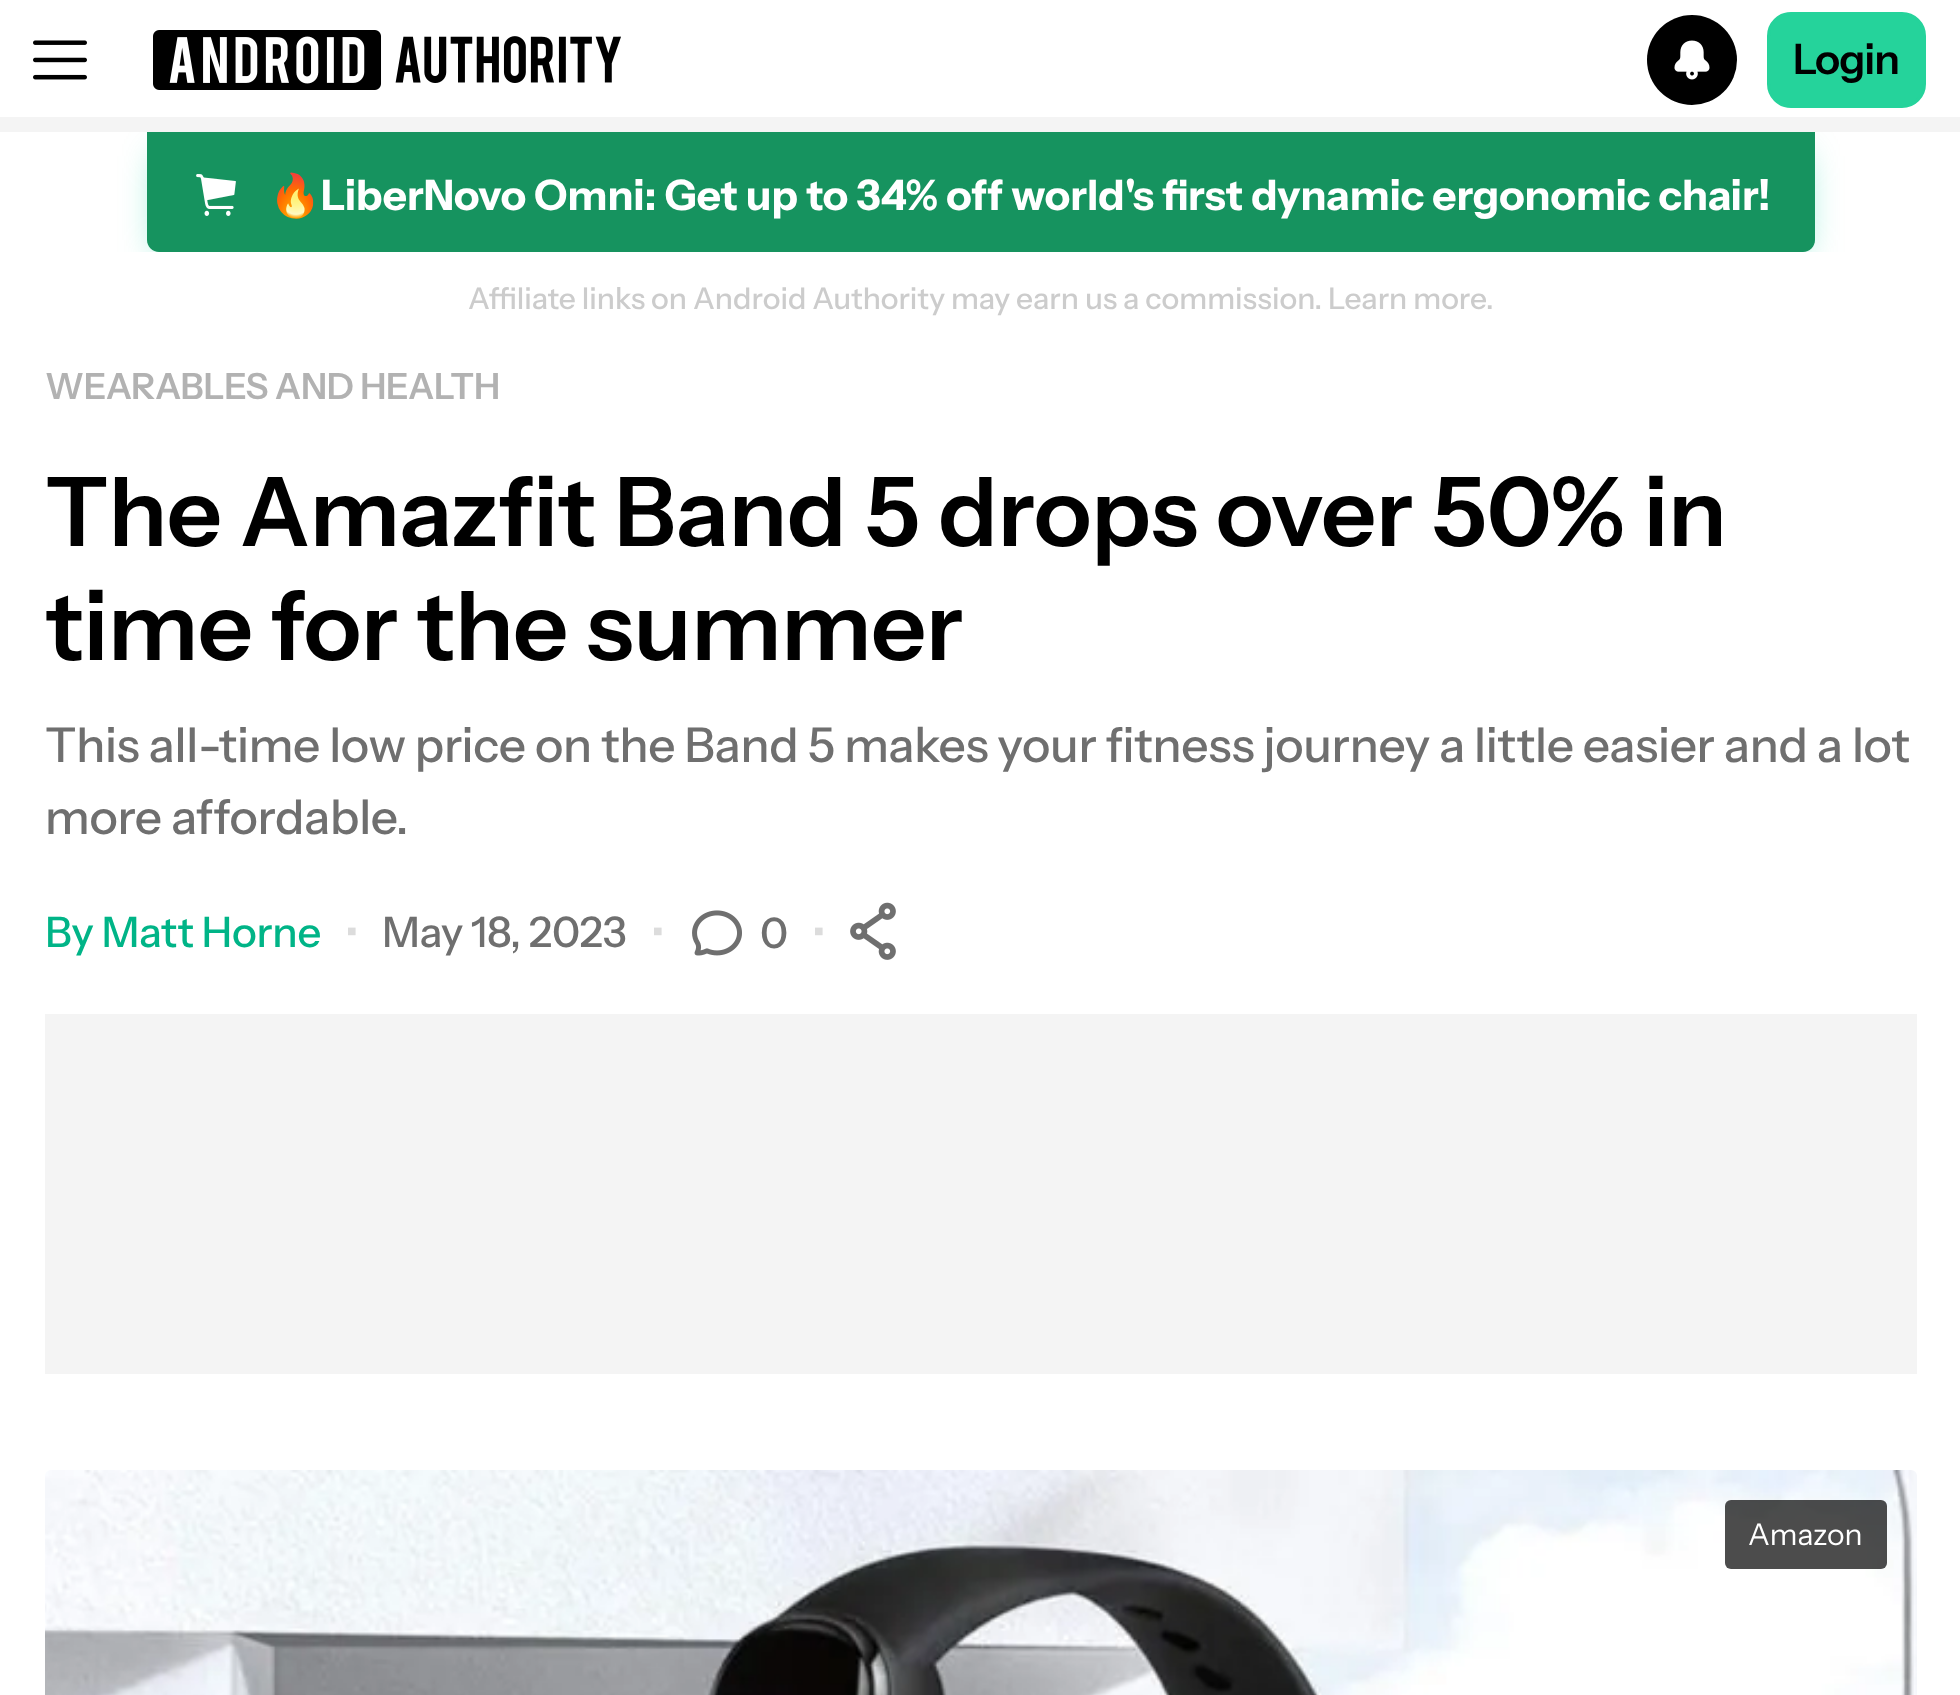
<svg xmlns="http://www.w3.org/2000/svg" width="1960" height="1695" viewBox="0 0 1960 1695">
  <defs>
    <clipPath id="clip1"><rect x="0" y="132" width="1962" height="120"/></clipPath>
    <clipPath id="clip2"><rect x="270" y="171" width="1500" height="48"/></clipPath>
  </defs>
  <rect width="100%" height="100%" fill="rgb(255,255,255)"/>
  <image x="33" y="40" width="54" height="40" href="pic1.png"/>
  <image x="153" y="30" width="468" height="60" href="pic2.png"/>
  <g clip-path="url(#clip1)">
    <rect x="159" y="156" width="1644" height="96" fill="rgba(0,212,159,0.5)" filter="blur(18px)"/>
  </g>
  <circle cx="1692" cy="60" r="45" fill="rgb(0,0,0)"/>
  <image x="1674" y="40" width="36" height="40" href="pic3.png"/>
  <rect x="1768.5" y="13.5" width="156" height="93" rx="22.5" fill="rgb(37,211,155)" stroke="rgb(37,211,155)" stroke-width="3"/>
  <text x="1793" y="74" font-family="Instrument Sans" font-size="42" font-weight="600" letter-spacing="-1" fill="rgb(0,0,0)">Login</text>
  <rect x="0" y="117" width="1960" height="15" fill="rgb(244,244,244)"/>
  <path d="M147 132H1815V240C1815 246.5 1809.5 252 1803 252H159C152.5 252 147 246.5 147 240Z" fill="rgb(22,147,95)"/>
  <image x="196" y="174" width="40" height="42" href="pic4.png"/>
  <g clip-path="url(#clip2)">
    <text x="269" y="210" font-family="Noto Color Emoji" font-size="42" font-weight="bold" fill="rgb(255,255,255)">🔥</text>
  </g>
  <text x="321" y="210" font-family="Instrument Sans" font-size="42" font-weight="bold" fill="rgb(255,255,255)">LiberNovo Omni: Get up to 34% off world's first dynamic ergonomic chair!</text>
  <text x="468" y="309" font-family="Instrument Sans" font-size="30" font-weight="500" fill="rgb(204,204,204)">Affiliate links on Android Authority may earn us a commission. Learn more.</text>
  <text x="45" y="399" font-family="Instrument Sans" font-size="36" font-weight="600" letter-spacing="-0.3" fill="rgb(178,178,178)">WEARABLES AND HEALTH</text>
  <g font-family="Instrument Sans" font-size="96" font-weight="600" letter-spacing="-0.3" fill="rgb(0,0,0)">
    <text>
      <tspan x="45" y="546">The Amazfit Band 5 drops over 50% in</tspan>
      <tspan x="45" y="660">time for the summer</tspan>
    </text>
  </g>
  <g font-family="Instrument Sans" font-size="48" font-weight="500" letter-spacing="-0.3" fill="rgb(111,111,111)">
    <text>
      <tspan x="45" y="762">This all-time low price on the Band 5 makes your fitness journey a little easier and a lot</tspan>
      <tspan x="45" y="834">more affordable.</tspan>
    </text>
  </g>
  <text x="45" y="947" font-family="Instrument Sans" font-size="42" font-weight="500" letter-spacing="-0.3" fill="rgb(0,180,135)">By Matt Horne</text>
  <text x="345" y="947" font-family="Instrument Sans" font-size="42" font-weight="500" letter-spacing="-0.3" fill="rgb(220,220,220)">•</text>
  <text x="382" y="947" font-family="Instrument Sans" font-size="42" font-weight="500" letter-spacing="-0.3" fill="rgb(111,111,111)">May 18, 2023</text>
  <text x="651" y="947" font-family="Instrument Sans" font-size="42" font-weight="500" letter-spacing="-0.3" fill="rgb(220,220,220)">•</text>
  <image x="692" y="910" width="50" height="46" href="pic5.png"/>
  <text x="760" y="948" font-family="Instrument Sans" font-size="42" font-weight="500" letter-spacing="-0.3" fill="rgb(111,111,111)">0</text>
  <text x="812" y="947" font-family="Instrument Sans" font-size="42" font-weight="500" letter-spacing="-0.3" fill="rgb(220,220,220)">•</text>
  <image x="850" y="902" width="46" height="58" href="pic6.png"/>
  <rect x="45" y="1014" width="1872" height="360" fill="rgb(244,244,244)"/>
  <image x="45" y="1470" width="1872" height="225" href="pic7.png"/>
  <rect x="1725" y="1500" width="162" height="69" rx="6" fill="rgba(0,0,0,0.7)"/>
  <text x="1748" y="1545" font-family="Instrument Sans" font-size="30" fill="rgb(255,255,255)">Amazon</text>
</svg>
